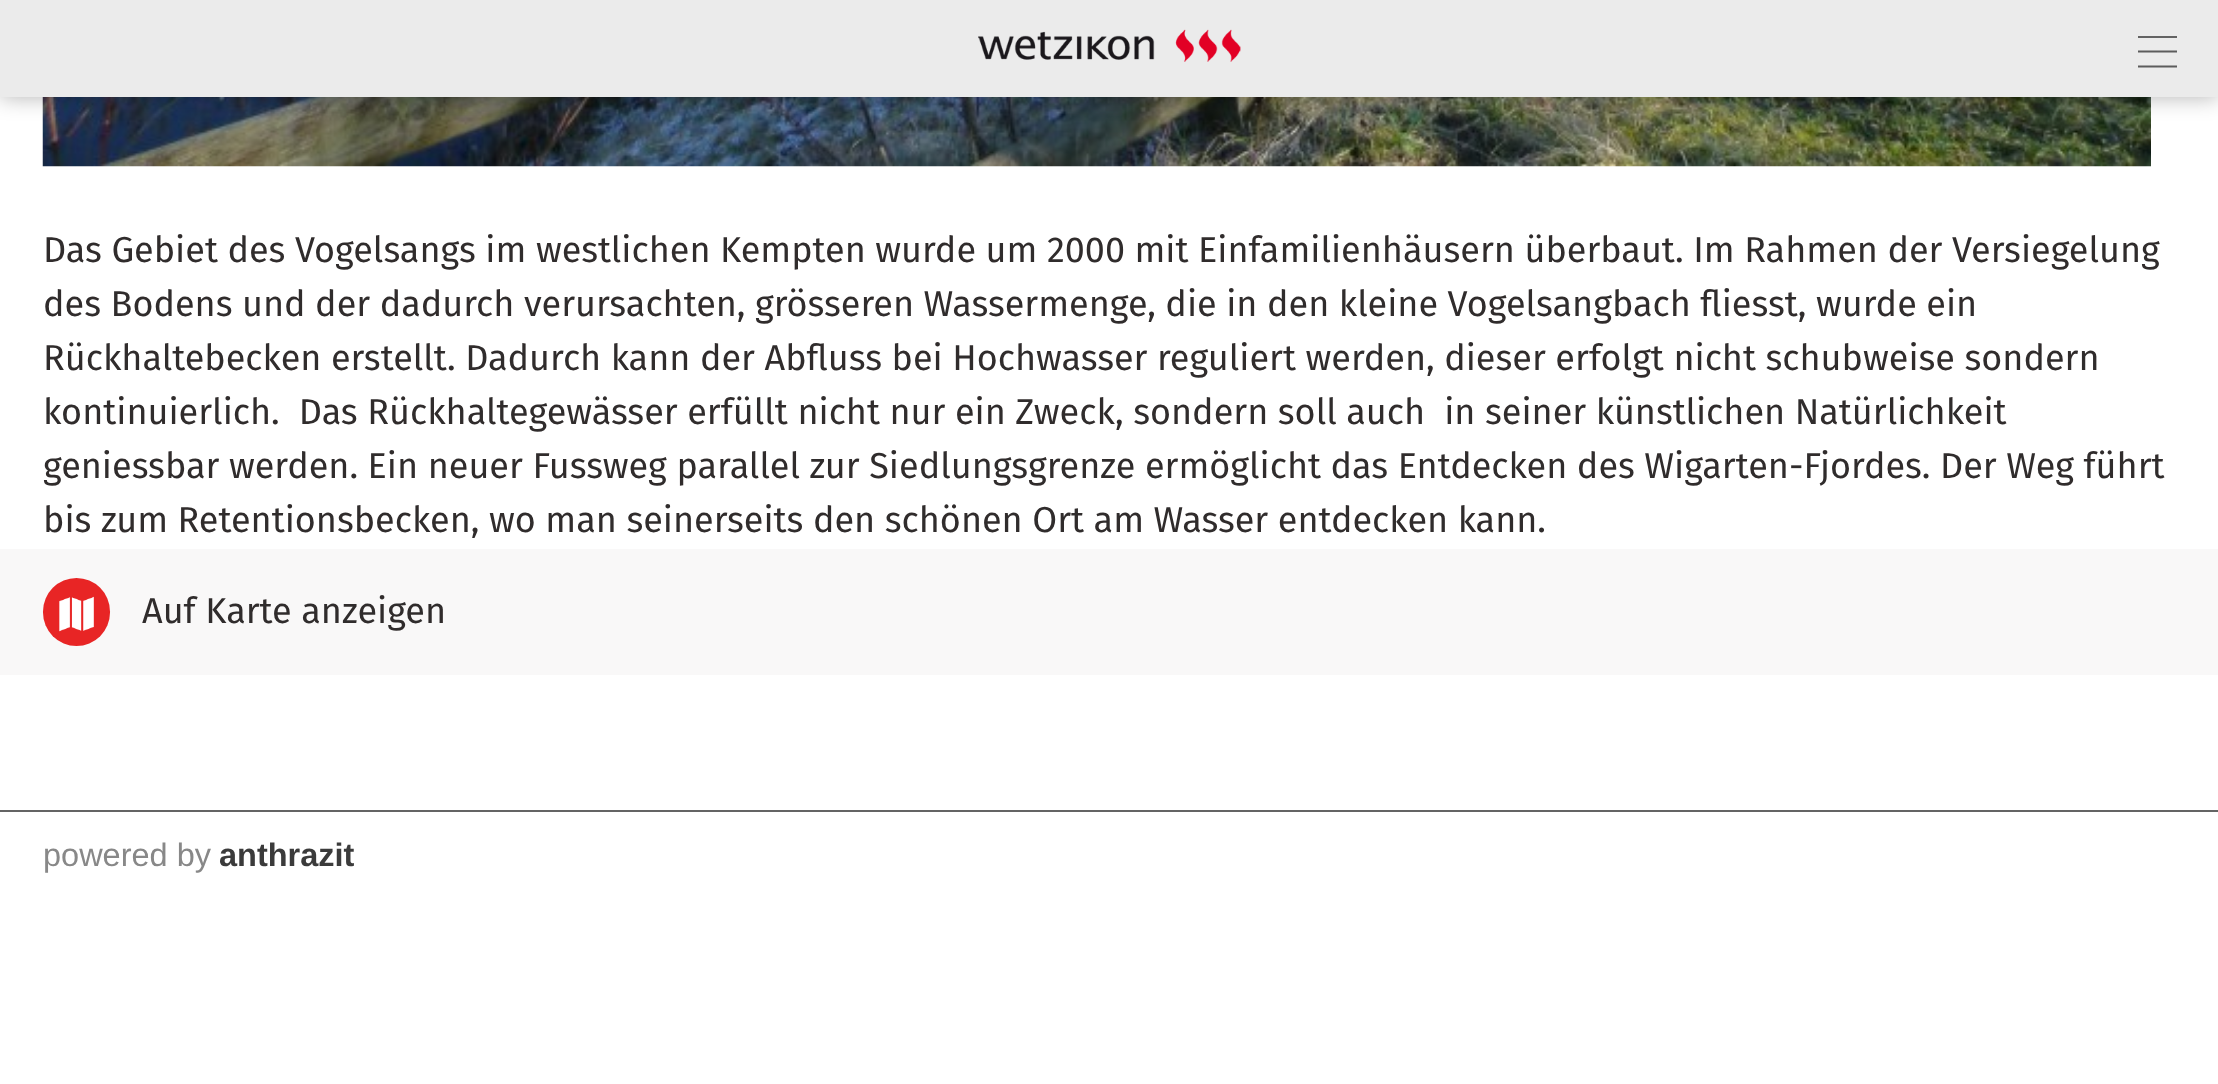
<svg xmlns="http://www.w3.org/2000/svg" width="2218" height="1084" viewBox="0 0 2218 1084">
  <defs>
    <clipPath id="clip1"><rect x="2138" y="27" width="40" height="50"/></clipPath>
  </defs>
  <rect width="100%" height="100%" fill="rgb(255,255,255)"/>
  <image x="42" y="97" width="2109" height="70" href="pic2.png"/>
  <rect x="0" y="0" width="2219" height="97" fill="rgba(0,0,0,0.3)" filter="blur(11px)"/>
  <rect x="0" y="0" width="2218" height="97" fill="rgb(235,235,235)"/>
  <image x="978" y="29" width="263" height="33" href="pic1.png"/>
  <rect x="2138" y="36" width="39" height="2" fill="rgb(99,99,99)"/>
  <g clip-path="url(#clip1)">
    <path d="M2137.5 51.5H2177M2137.5 66.5H2177" fill="none" stroke="rgb(92,92,92)" stroke-width="1.9" stroke-linejoin="round"/>
  </g>
  <g font-family="Fira Sans" font-size="36" fill="rgb(48,44,44)">
    <text xml:space="preserve"><tspan x="43" y="262">Das Gebiet des Vogelsangs im westlichen Kempten wurde um 2000 mit Einfamilienhäusern überbaut. Im Rahmen der Versiegelung</tspan><tspan x="43" y="316">des Bodens und der dadurch verursachten, grösseren Wassermenge, die in den kleine Vogelsangbach fliesst, wurde ein</tspan><tspan x="43" y="370">Rückhaltebecken erstellt. Dadurch kann der Abfluss bei Hochwasser reguliert werden, dieser erfolgt nicht schubweise sondern</tspan><tspan x="43" y="424">kontinuierlich.  Das Rückhaltegewässer erfüllt nicht nur ein Zweck, sondern soll auch  in seiner künstlichen Natürlichkeit</tspan><tspan x="43" y="478">geniessbar werden. Ein neuer Fussweg parallel zur Siedlungsgrenze ermöglicht das Entdecken des Wigarten-Fjordes. Der Weg führt</tspan><tspan x="43" y="532">bis zum Retentionsbecken, wo man seinerseits den schönen Ort am Wasser entdecken kann.</tspan></text>
  </g>
  <rect x="0" y="549" width="2218" height="126" fill="rgb(249,248,248)"/>
  <rect x="43" y="578" width="67" height="68" rx="33.5" fill="rgb(232,37,37)"/>
  <image x="59" y="596" width="35" height="36" href="pic3.png"/>
  <text x="142" y="623" font-family="Fira Sans" font-size="36" fill="rgb(48,44,44)">Auf Karte anzeigen</text>
  <rect x="0" y="810" width="2218" height="2" fill="rgb(100,100,100)"/>
  <text x="43" y="866" font-family="Liberation Sans" font-size="32.5" fill="rgb(136,136,136)">powered by</text>
  <text x="219" y="866" font-family="Liberation Sans" font-size="32.5" font-weight="bold" fill="rgb(59,59,59)">anthrazit</text>
</svg>
